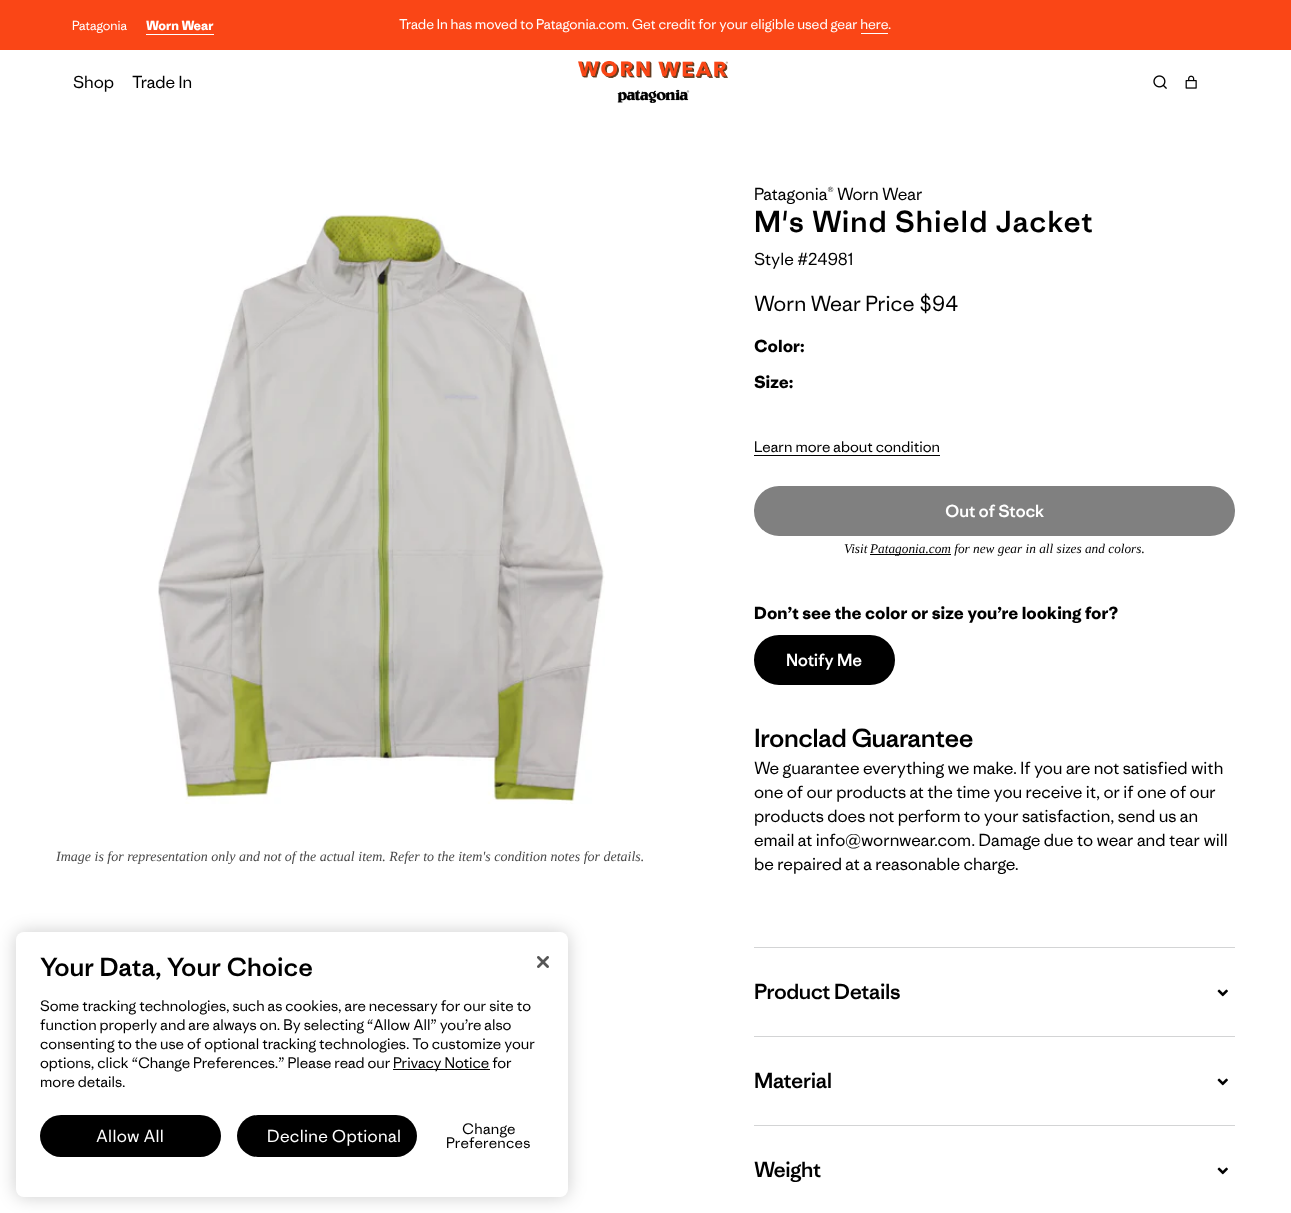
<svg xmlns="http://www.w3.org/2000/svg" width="1291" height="1213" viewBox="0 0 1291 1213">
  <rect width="100%" height="100%" fill="rgb(255,255,255)"/>
  <rect x="0" y="0" width="1291" height="50" fill="rgb(250,70,22)"/>
  <text x="72" y="30" font-family="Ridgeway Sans" font-size="12" fill="rgb(255,255,255)">Patagonia</text>
  <text x="146" y="30" font-family="Ridgeway Sans" font-size="12" font-weight="bold" fill="rgb(255,255,255)">Worn Wear</text>
  <rect x="146" y="34" width="68" height="1" fill="rgb(255,255,255)"/>
  <g font-family="Ridgeway Sans" font-size="13" fill="rgb(255,255,255)">
    <text x="399" y="29">Trade In has moved to Patagonia.com. Get credit for your eligible used gear here</text>
    <text x="888" y="29">.</text>
  </g>
  <rect x="861" y="33" width="27" height="1" fill="rgb(255,255,255)"/>
  <g font-family="Ridgeway Sans" font-size="16" fill="rgb(0,0,0)">
    <text x="73" y="88">Shop</text>
    <text x="132" y="88">Trade In</text>
  </g>
  <image x="578" y="61" width="150" height="42" href="pic1.png"/>
  <image x="1153" y="75" width="14" height="14" href="pic2.png"/>
  <image x="1185" y="75" width="12" height="14" href="pic3.png"/>
  <image x="158" y="214" width="447" height="590" href="pic4.png"/>
  <text x="56" y="861" font-family="Liberation Serif" font-size="14" font-style="italic" fill="rgb(73,73,73)">Image is for representation only and not of the actual item. Refer to the item's condition notes for details.</text>
  <text x="754" y="200" font-family="Ridgeway Sans" font-size="16" fill="rgb(0,0,0)">Patagonia® Worn Wear</text>
  <text x="754" y="232" font-family="Ridgeway Sans" font-size="28" font-weight="500" letter-spacing="1" fill="rgb(0,0,0)">M's Wind Shield Jacket</text>
  <text x="754" y="265" font-family="Ridgeway Sans" font-size="16" fill="rgb(0,0,0)">Style #24981</text>
  <text x="754" y="311" font-family="Ridgeway Sans" font-size="20" fill="rgb(0,0,0)">Worn Wear Price $94</text>
  <g font-family="Ridgeway Sans" font-size="16" font-weight="bold" fill="rgb(0,0,0)">
    <text x="754" y="352">Color:</text>
    <text x="754" y="388">Size:</text>
  </g>
  <text x="754" y="452" font-family="Ridgeway Sans" font-size="14" fill="rgb(0,0,0)">Learn more about condition</text>
  <rect x="754" y="455" width="186" height="1" fill="rgb(0,0,0)"/>
  <rect x="756" y="488" width="477" height="46" rx="23" fill="rgb(128,128,128)" stroke="rgb(128,128,128)" stroke-width="4"/>
  <text x="945" y="517" font-family="Ridgeway Sans" font-size="16" font-weight="500" letter-spacing="-0.25" fill="rgb(255,255,255)">Out of Stock</text>
  <text x="844" y="553" font-family="Liberation Serif" font-size="13.3" font-style="italic" fill="rgb(0,0,0)">Visit</text>
  <rect x="870" y="554" width="81" height="1" fill="rgb(0,0,0)"/>
  <text x="870" y="553" font-family="Liberation Serif" font-size="13.3" font-style="italic" fill="rgb(0,0,0)">Patagonia.com for new gear in all sizes and colors.</text>
  <text x="754" y="619" font-family="Ridgeway Sans" font-size="16" font-weight="bold" fill="rgb(0,0,0)">Don’t see the color or size you’re looking for?</text>
  <rect x="756" y="637" width="137" height="46" rx="23" fill="rgb(0,0,0)" stroke="rgb(0,0,0)" stroke-width="4"/>
  <text x="786" y="666" font-family="Ridgeway Sans" font-size="16" font-weight="500" letter-spacing="-0.25" fill="rgb(255,255,255)">Notify Me</text>
  <text x="754" y="747" font-family="Ridgeway Sans" font-size="24" font-weight="500" letter-spacing="-0.5" fill="rgb(0,0,0)">Ironclad Guarantee</text>
  <g font-family="Ridgeway Sans" font-size="16" fill="rgb(0,0,0)">
    <text>
      <tspan x="754" y="774">We guarantee everything we make. If you are not satisfied with</tspan>
      <tspan x="754" y="798">one of our products at the time you receive it, or if one of our</tspan>
      <tspan x="754" y="822">products does not perform to your satisfaction, send us an</tspan>
      <tspan x="754" y="846">email at info@wornwear.com. Damage due to wear and tear will</tspan>
      <tspan x="754" y="870">be repaired at a reasonable charge.</tspan>
    </text>
  </g>
  <rect x="754" y="947" width="481" height="1" fill="rgb(211,212,213)"/>
  <text x="754" y="999" font-family="Ridgeway Sans" font-size="20" font-weight="500" letter-spacing="-0.4" fill="rgb(0,0,0)">Product Details</text>
  <image x="1217" y="989" width="11" height="8" href="pic5.png"/>
  <rect x="754" y="1036" width="481" height="1" fill="rgb(211,212,213)"/>
  <text x="754" y="1088" font-family="Ridgeway Sans" font-size="20" font-weight="500" letter-spacing="-0.4" fill="rgb(0,0,0)">Material</text>
  <image x="1217" y="1078" width="11" height="8" href="pic5.png"/>
  <rect x="754" y="1125" width="481" height="1" fill="rgb(211,212,213)"/>
  <text x="754" y="1177" font-family="Ridgeway Sans" font-size="20" font-weight="500" letter-spacing="-0.4" fill="rgb(0,0,0)">Weight</text>
  <image x="1217" y="1167" width="11" height="8" href="pic5.png"/>
  <rect x="16" y="932" width="552" height="265" rx="8" fill="rgba(0,0,0,0.2)" filter="blur(9px)"/>
  <rect x="16" y="932" width="552" height="265" rx="8" fill="rgb(255,255,255)"/>
  <text x="40" y="976" font-family="Ridgeway Sans" font-size="24" font-weight="500" fill="rgb(0,0,0)">Your Data, Your Choice</text>
  <g font-family="Ridgeway Sans" font-size="14" fill="rgb(0,0,0)">
    <text>
      <tspan x="40" y="1011">Some tracking technologies, such as cookies, are necessary for our site to</tspan>
      <tspan x="40" y="1030">function properly and are always on. By selecting “Allow All” you’re also</tspan>
      <tspan x="40" y="1049">consenting to the use of optional tracking technologies. To customize your</tspan>
      <tspan x="40" y="1068">options, click “Change Preferences.” Please read our</tspan>
    </text>
  </g>
  <rect x="393" y="1069" width="97" height="1" fill="rgb(0,0,0)"/>
  <g font-family="Ridgeway Sans" font-size="14" fill="rgb(0,0,0)">
    <text x="393" y="1068">Privacy Notice for</text>
    <text x="40" y="1087">more details.</text>
  </g>
  <image x="537" y="956" width="12" height="12" href="pic6.png"/>
  <rect x="40" y="1115" width="181" height="42" rx="21" fill="rgb(0,0,0)"/>
  <text x="96" y="1142" font-family="Ridgeway Sans" font-size="16" letter-spacing="0.3" fill="rgb(255,255,255)">Allow All</text>
  <rect x="237" y="1115" width="180" height="42" rx="21" fill="rgb(0,0,0)"/>
  <text x="267" y="1142" font-family="Ridgeway Sans" font-size="16" letter-spacing="0.3" fill="rgb(255,255,255)">Decline Optional</text>
  <g font-family="Ridgeway Sans" font-size="14" letter-spacing="0.25" fill="rgb(0,0,0)">
    <text x="462" y="1134">Change</text>
    <text x="446" y="1148">Preferences</text>
  </g>
</svg>
